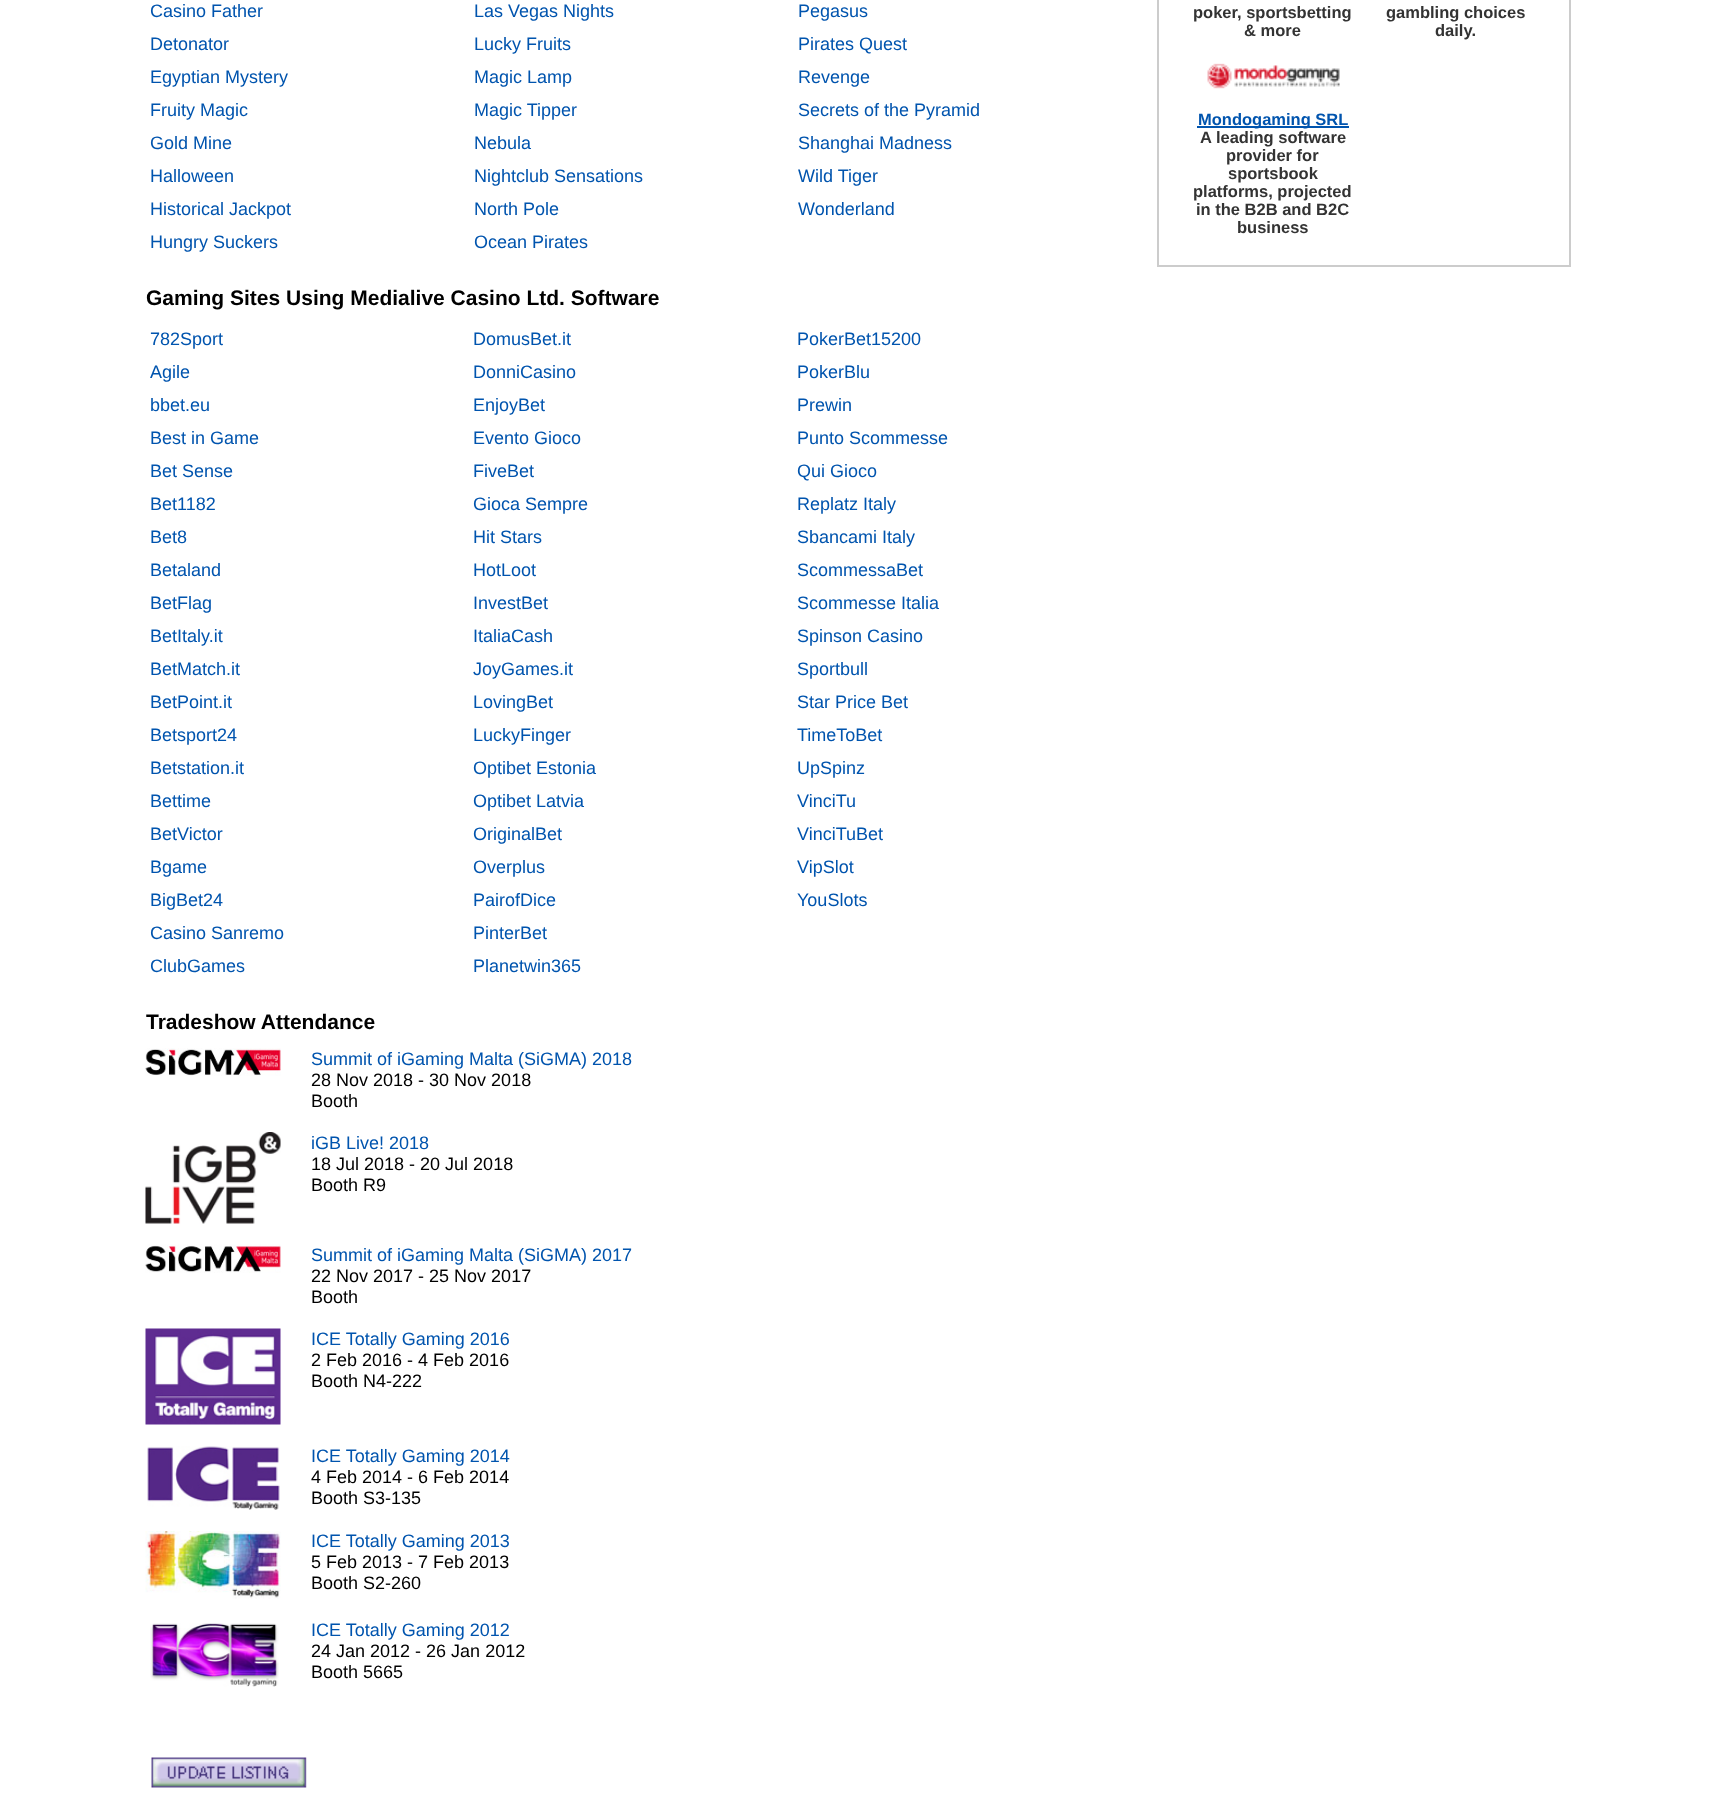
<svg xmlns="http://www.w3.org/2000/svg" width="1715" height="1802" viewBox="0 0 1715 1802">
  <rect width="100%" height="100%" fill="rgb(255,255,255)"/>
  <g font-family="Liberation Sans" font-size="18" fill="rgb(0,84,174)">
    <text x="150" y="17">Casino Father</text>
    <text x="474" y="17">Las Vegas Nights</text>
    <text x="798" y="17">Pegasus</text>
    <text x="150" y="50">Detonator</text>
    <text x="474" y="50">Lucky Fruits</text>
    <text x="798" y="50">Pirates Quest</text>
    <text x="150" y="83">Egyptian Mystery</text>
    <text x="474" y="83">Magic Lamp</text>
    <text x="798" y="83">Revenge</text>
    <text x="150" y="116">Fruity Magic</text>
    <text x="474" y="116">Magic Tipper</text>
    <text x="798" y="116">Secrets of the Pyramid</text>
    <text x="150" y="149">Gold Mine</text>
    <text x="474" y="149">Nebula</text>
    <text x="798" y="149">Shanghai Madness</text>
    <text x="150" y="182">Halloween</text>
    <text x="474" y="182">Nightclub Sensations</text>
    <text x="798" y="182">Wild Tiger</text>
    <text x="150" y="215">Historical Jackpot</text>
    <text x="474" y="215">North Pole</text>
    <text x="798" y="215">Wonderland</text>
    <text x="150" y="248">Hungry Suckers</text>
    <text x="474" y="248">Ocean Pirates</text>
  </g>
  <text x="146" y="305" font-family="Liberation Sans" font-size="21" font-weight="bold" fill="rgb(0,0,0)">Gaming Sites Using Medialive Casino Ltd. Software</text>
  <g font-family="Liberation Sans" font-size="18" fill="rgb(0,84,174)">
    <text x="150" y="345">782Sport</text>
    <text x="473" y="345">DomusBet.it</text>
    <text x="797" y="345">PokerBet15200</text>
    <text x="150" y="378">Agile</text>
    <text x="473" y="378">DonniCasino</text>
    <text x="797" y="378">PokerBlu</text>
    <text x="150" y="411">bbet.eu</text>
    <text x="473" y="411">EnjoyBet</text>
    <text x="797" y="411">Prewin</text>
    <text x="150" y="444">Best in Game</text>
    <text x="473" y="444">Evento Gioco</text>
    <text x="797" y="444">Punto Scommesse</text>
    <text x="150" y="477">Bet Sense</text>
    <text x="473" y="477">FiveBet</text>
    <text x="797" y="477">Qui Gioco</text>
    <text x="150" y="510">Bet1182</text>
    <text x="473" y="510">Gioca Sempre</text>
    <text x="797" y="510">Replatz Italy</text>
    <text x="150" y="543">Bet8</text>
    <text x="473" y="543">Hit Stars</text>
    <text x="797" y="543">Sbancami Italy</text>
    <text x="150" y="576">Betaland</text>
    <text x="473" y="576">HotLoot</text>
    <text x="797" y="576">ScommessaBet</text>
    <text x="150" y="609">BetFlag</text>
    <text x="473" y="609">InvestBet</text>
    <text x="797" y="609">Scommesse Italia</text>
    <text x="150" y="642">BetItaly.it</text>
    <text x="473" y="642">ItaliaCash</text>
    <text x="797" y="642">Spinson Casino</text>
    <text x="150" y="675">BetMatch.it</text>
    <text x="473" y="675">JoyGames.it</text>
    <text x="797" y="675">Sportbull</text>
    <text x="150" y="708">BetPoint.it</text>
    <text x="473" y="708">LovingBet</text>
    <text x="797" y="708">Star Price Bet</text>
    <text x="150" y="741">Betsport24</text>
    <text x="473" y="741">LuckyFinger</text>
    <text x="797" y="741">TimeToBet</text>
    <text x="150" y="774">Betstation.it</text>
    <text x="473" y="774">Optibet Estonia</text>
    <text x="797" y="774">UpSpinz</text>
    <text x="150" y="807">Bettime</text>
    <text x="473" y="807">Optibet Latvia</text>
    <text x="797" y="807">VinciTu</text>
    <text x="150" y="840">BetVictor</text>
    <text x="473" y="840">OriginalBet</text>
    <text x="797" y="840">VinciTuBet</text>
    <text x="150" y="873">Bgame</text>
    <text x="473" y="873">Overplus</text>
    <text x="797" y="873">VipSlot</text>
    <text x="150" y="906">BigBet24</text>
    <text x="473" y="906">PairofDice</text>
    <text x="797" y="906">YouSlots</text>
    <text x="150" y="939">Casino Sanremo</text>
    <text x="473" y="939">PinterBet</text>
    <text x="150" y="972">ClubGames</text>
    <text x="473" y="972">Planetwin365</text>
  </g>
  <text x="146" y="1029" font-family="Liberation Sans" font-size="21" font-weight="bold" fill="rgb(0,0,0)">Tradeshow Attendance</text>
  <image x="145" y="1048" width="136" height="28" href="pic1.png"/>
  <text x="311" y="1065" font-family="Liberation Sans" font-size="18" fill="rgb(0,84,174)">Summit of iGaming Malta (SiGMA) 2018</text>
  <g font-family="Liberation Sans" font-size="18" fill="rgb(0,0,0)">
    <text>
      <tspan x="311" y="1086">28 Nov 2018 - 30 Nov 2018</tspan>
      <tspan x="311" y="1107">Booth</tspan>
    </text>
  </g>
  <image x="145" y="1132" width="136" height="92" href="pic2.png"/>
  <text x="311" y="1149" font-family="Liberation Sans" font-size="18" fill="rgb(0,84,174)">iGB Live! 2018</text>
  <g font-family="Liberation Sans" font-size="18" fill="rgb(0,0,0)">
    <text>
      <tspan x="311" y="1170">18 Jul 2018 - 20 Jul 2018</tspan>
      <tspan x="311" y="1191">Booth R9</tspan>
    </text>
  </g>
  <image x="145" y="1244" width="136" height="29" href="pic3.png"/>
  <text x="311" y="1261" font-family="Liberation Sans" font-size="18" fill="rgb(0,84,174)">Summit of iGaming Malta (SiGMA) 2017</text>
  <g font-family="Liberation Sans" font-size="18" fill="rgb(0,0,0)">
    <text>
      <tspan x="311" y="1282">22 Nov 2017 - 25 Nov 2017</tspan>
      <tspan x="311" y="1303">Booth</tspan>
    </text>
  </g>
  <image x="145" y="1328" width="136" height="97" href="pic4.png"/>
  <text x="311" y="1345" font-family="Liberation Sans" font-size="18" fill="rgb(0,84,174)">ICE Totally Gaming 2016</text>
  <g font-family="Liberation Sans" font-size="18" fill="rgb(0,0,0)">
    <text>
      <tspan x="311" y="1366">2 Feb 2016 - 4 Feb 2016</tspan>
      <tspan x="311" y="1387">Booth N4-222</tspan>
    </text>
  </g>
  <image x="147" y="1446" width="133" height="64" href="pic5.png"/>
  <text x="311" y="1462" font-family="Liberation Sans" font-size="18" fill="rgb(0,84,174)">ICE Totally Gaming 2014</text>
  <g font-family="Liberation Sans" font-size="18" fill="rgb(0,0,0)">
    <text>
      <tspan x="311" y="1483">4 Feb 2014 - 6 Feb 2014</tspan>
      <tspan x="311" y="1504">Booth S3-135</tspan>
    </text>
  </g>
  <image x="145" y="1531" width="136" height="68" href="pic6.png"/>
  <text x="311" y="1547" font-family="Liberation Sans" font-size="18" fill="rgb(0,84,174)">ICE Totally Gaming 2013</text>
  <g font-family="Liberation Sans" font-size="18" fill="rgb(0,0,0)">
    <text>
      <tspan x="311" y="1568">5 Feb 2013 - 7 Feb 2013</tspan>
      <tspan x="311" y="1589">Booth S2-260</tspan>
    </text>
  </g>
  <image x="150" y="1623" width="129" height="64" href="pic7.png"/>
  <text x="311" y="1636" font-family="Liberation Sans" font-size="18" fill="rgb(0,84,174)">ICE Totally Gaming 2012</text>
  <g font-family="Liberation Sans" font-size="18" fill="rgb(0,0,0)">
    <text>
      <tspan x="311" y="1657">24 Jan 2012 - 26 Jan 2012</tspan>
      <tspan x="311" y="1678">Booth 5665</tspan>
    </text>
  </g>
  <image x="151" y="1757" width="156" height="31" href="pic8.png"/>
  <rect x="1158" y="-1" width="412" height="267" fill="none" stroke="rgb(204,204,204)" stroke-width="2"/>
  <g font-family="Liberation Sans" font-size="16.5" font-weight="bold" fill="rgb(51,51,51)">
    <text x="1193" y="18">poker, sportsbetting</text>
    <text x="1244" y="36">&amp; more</text>
    <text x="1386" y="18">gambling choices</text>
    <text x="1435" y="36">daily.</text>
  </g>
  <image x="1207" y="63" width="133" height="26" href="pic9.png"/>
  <rect x="1197" y="126" width="152" height="2" fill="rgb(0,84,174)"/>
  <text x="1198" y="125" font-family="Liberation Sans" font-size="16.5" font-weight="bold" fill="rgb(0,84,174)">Mondogaming SRL</text>
  <g font-family="Liberation Sans" font-size="16.5" font-weight="bold" fill="rgb(51,51,51)">
    <text x="1200" y="143">A leading software</text>
    <text x="1226" y="161">provider for</text>
    <text x="1228" y="179">sportsbook</text>
    <text x="1193" y="197">platforms, projected</text>
    <text x="1196" y="215">in the B2B and B2C</text>
    <text x="1237" y="233">business</text>
  </g>
</svg>
